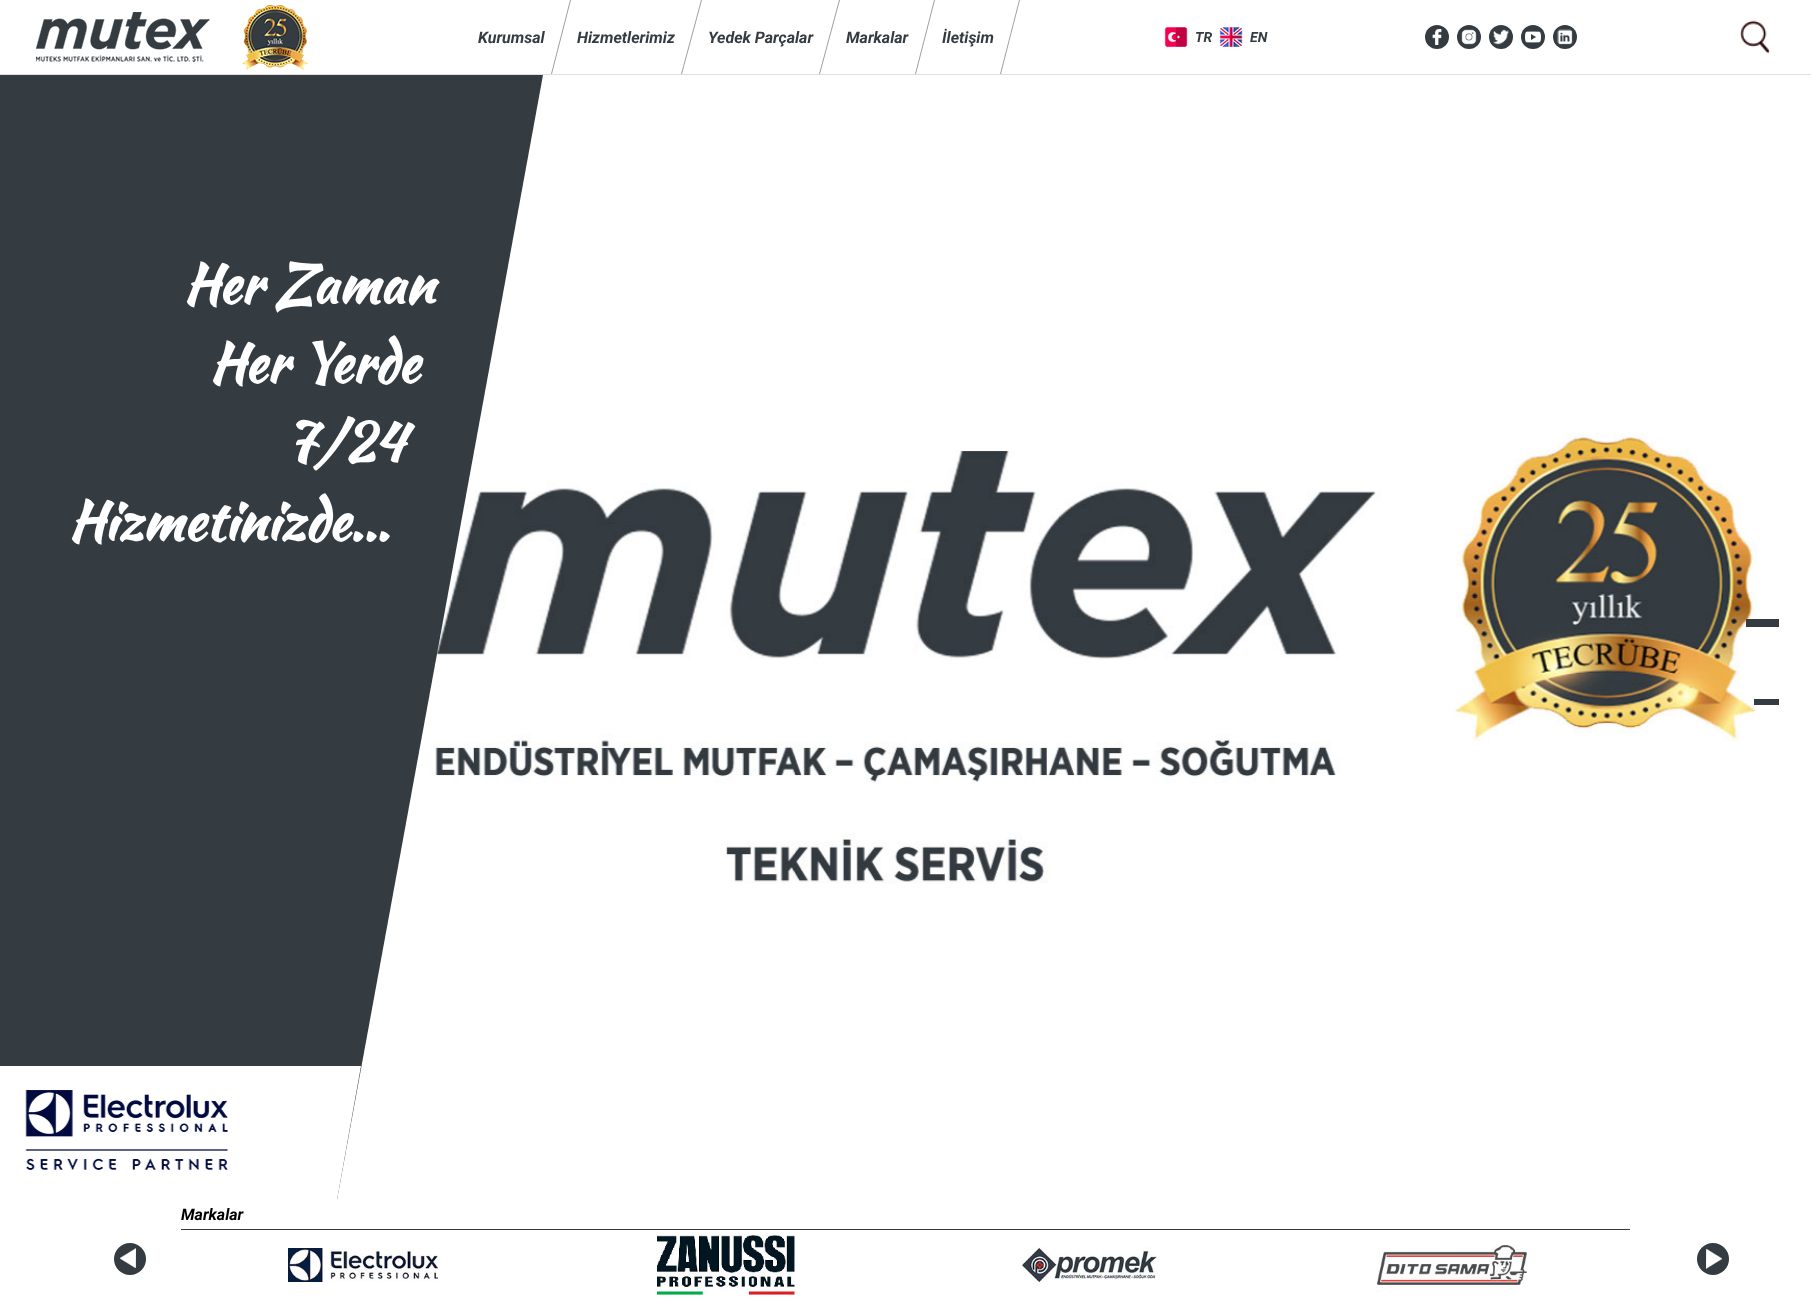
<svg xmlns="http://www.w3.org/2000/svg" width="1811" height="1300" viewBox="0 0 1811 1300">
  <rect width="100%" height="100%" fill="rgb(255,255,255)"/>
  <rect x="0" y="74" width="1811" height="1" fill="rgb(221,221,221)"/>
  <image x="36" y="12" width="174" height="50" href="pic1.png"/>
  <image x="242" y="5" width="66" height="65" href="pic2.png"/>
  <path d="M570 0H571L552 74H551Z" fill="rgb(156,160,163)"/>
  <text x="478" y="43" font-family="Roboto" font-size="16" font-weight="bold" font-style="italic" fill="rgb(52,60,65)">Kurumsal</text>
  <path d="M701 0H702L682 74H681Z" fill="rgb(156,160,163)"/>
  <text x="577" y="43" font-family="Roboto" font-size="16" font-weight="bold" font-style="italic" fill="rgb(52,60,65)">Hizmetlerimiz</text>
  <path d="M839 0H840L820 74H819Z" fill="rgb(156,160,163)"/>
  <text x="708" y="43" font-family="Roboto" font-size="16" font-weight="bold" font-style="italic" fill="rgb(52,60,65)">Yedek Parçalar</text>
  <path d="M934 0H935L916 74H915Z" fill="rgb(156,160,163)"/>
  <text x="846" y="43" font-family="Roboto" font-size="16" font-weight="bold" font-style="italic" fill="rgb(52,60,65)">Markalar</text>
  <path d="M1019 0H1020L1001 74H1000Z" fill="rgb(156,160,163)"/>
  <text x="942" y="43" font-family="Roboto" font-size="16" font-weight="bold" font-style="italic" fill="rgb(52,60,65)">İletişim</text>
  <image x="1164" y="27" width="24" height="20" href="pic3.png"/>
  <text x="1195" y="42" font-family="Roboto" font-size="14" font-weight="bold" font-style="italic" fill="rgb(52,60,65)">TR</text>
  <image x="1219" y="27" width="24" height="20" href="pic4.png"/>
  <text x="1250" y="42" font-family="Roboto" font-size="14" font-weight="bold" font-style="italic" fill="rgb(52,60,65)">EN</text>
  <circle cx="1437" cy="37" r="12" fill="rgb(52,60,65)"/>
  <image x="1432" y="29" width="10" height="16" href="pic5.png"/>
  <circle cx="1469" cy="37" r="12" fill="rgb(52,60,65)"/>
  <image x="1461" y="29" width="16" height="16" href="pic6.png"/>
  <circle cx="1501" cy="37" r="12" fill="rgb(52,60,65)"/>
  <image x="1493" y="29" width="16" height="16" href="pic7.png"/>
  <circle cx="1533" cy="37" r="12" fill="rgb(52,60,65)"/>
  <image x="1525" y="31" width="16" height="12" href="pic8.png"/>
  <circle cx="1565" cy="37" r="12" fill="rgb(52,60,65)"/>
  <image x="1557" y="29" width="16" height="16" href="pic9.png"/>
  <image x="1740" y="20" width="30" height="34" href="pic10.png"/>
  <image x="337" y="75" width="1474" height="1125" href="pic12.png"/>
  <path d="M0 75V1200H337L543 75Z" fill="rgb(52,60,65)"/>
  <g font-family="Kaushan Script" font-size="54.25" font-weight="bold" fill="rgb(255,255,255)">
    <text x="183" y="303">Her Zaman</text>
    <text x="209" y="382">Her Yerde</text>
    <text x="285" y="461">7/24</text>
    <text x="68" y="540">Hizmetinizde...</text>
  </g>
  <path d="M0 1200H337L361 1066H0Z" fill="rgb(255,255,255)"/>
  <image x="25" y="1090" width="203" height="80" href="pic11.png"/>
  <rect x="1746" y="619" width="33" height="8" fill="rgb(52,60,65)"/>
  <rect x="1754" y="699" width="25" height="6" fill="rgb(52,60,65)"/>
  <rect x="1754" y="715" width="2" height="2" fill="rgb(255,255,255)"/>
  <rect x="181" y="1229" width="1449" height="1" fill="rgb(52,60,65)"/>
  <text x="181" y="1220" font-family="Roboto" font-size="16" font-weight="bold" font-style="italic" fill="rgb(0,0,0)">Markalar</text>
  <circle cx="130" cy="1259" r="16" fill="rgb(52,60,65)"/>
  <image x="120" y="1248" width="16" height="20" href="pic13.png"/>
  <image x="288" y="1248" width="150" height="34" href="pic14.png"/>
  <image x="657" y="1235" width="138" height="60" href="pic15.png"/>
  <image x="1020" y="1246" width="138" height="39" href="pic16.png"/>
  <image x="1377" y="1245" width="150" height="40" href="pic17.png"/>
  <circle cx="1713" cy="1259" r="16" fill="rgb(52,60,65)"/>
  <image x="1706" y="1249" width="16" height="20" href="pic18.png"/>
</svg>
